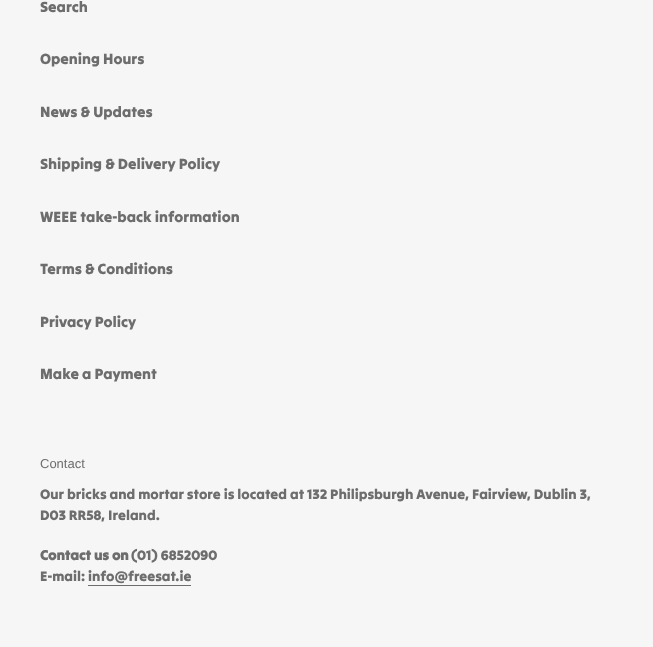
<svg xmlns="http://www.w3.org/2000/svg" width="653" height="647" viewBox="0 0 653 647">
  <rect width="100%" height="100%" fill="rgb(246,246,246)"/>
  <g font-family="Tilt Warp" font-size="15" fill="rgb(109,109,109)">
    <text x="40" y="12">Search</text>
    <text x="40" y="64">Opening Hours</text>
    <text x="40" y="117">News &amp; Updates</text>
    <text x="40" y="169">Shipping &amp; Delivery Policy</text>
    <text x="40" y="222">WEEE take-back information</text>
    <text x="40" y="274">Terms &amp; Conditions</text>
    <text x="40" y="327">Privacy Policy</text>
    <text x="40" y="379">Make a Payment</text>
  </g>
  <text x="40" y="468" font-family="Liberation Sans" font-size="13" fill="rgb(109,109,109)">Contact</text>
  <g font-family="Tilt Warp" font-size="14" fill="rgb(109,109,109)">
    <text>
      <tspan x="40" y="499">Our bricks and mortar store is located at 132 Philipsburgh Avenue, Fairview, Dublin 3,</tspan>
      <tspan x="40" y="520">D03 RR58, Ireland.</tspan>
    </text>
  </g>
  <text x="40" y="560" font-family="Tilt Warp" font-size="14" font-weight="bold" fill="rgb(109,109,109)">Contact us on</text>
  <g font-family="Tilt Warp" font-size="14" fill="rgb(109,109,109)">
    <text x="131" y="560">(01) 6852090</text>
    <text x="40" y="581">E-mail: info@freesat.ie</text>
  </g>
  <rect x="88" y="585" width="103" height="1" fill="rgb(109,109,109)"/>
</svg>
